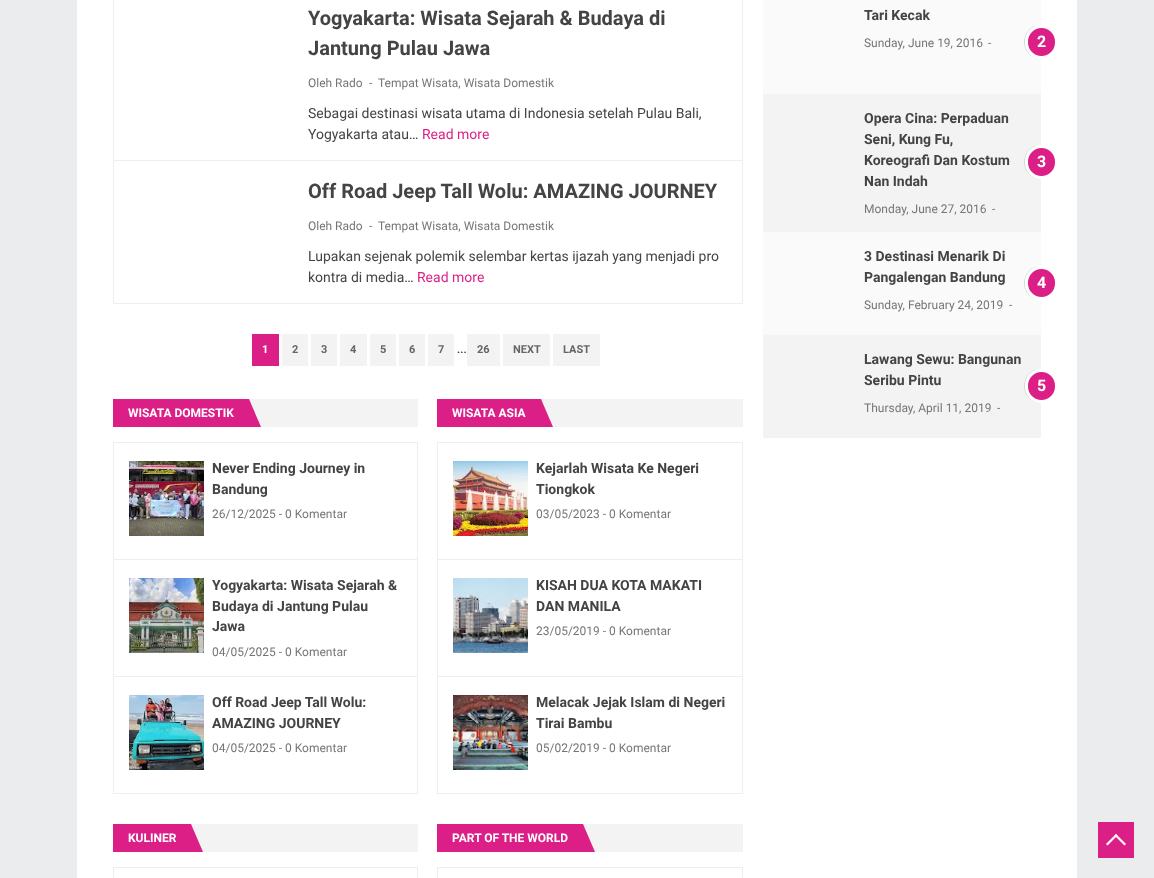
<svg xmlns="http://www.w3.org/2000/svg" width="1154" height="878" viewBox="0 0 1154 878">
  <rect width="100%" height="100%" fill="rgb(234,236,237)"/>
  <rect x="77" y="0" width="1000" height="878" fill="rgb(255,255,255)"/>
  <rect x="113.5" y="-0.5" width="629" height="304" fill="none" stroke="rgb(238,238,238)"/>
  <rect x="114" y="160" width="628" height="1" fill="rgb(238,238,238)"/>
  <g font-family="Roboto" font-size="20" font-weight="bold" fill="rgb(68,68,68)">
    <text>
      <tspan x="308" y="25">Yogyakarta: Wisata Sejarah &amp; Budaya di</tspan>
      <tspan x="308" y="55">Jantung Pulau Jawa</tspan>
    </text>
  </g>
  <g font-family="Roboto" font-size="12" fill="rgb(117,117,117)">
    <text x="308" y="87">Oleh Rado</text>
    <text x="369" y="87">-</text>
    <text x="378" y="87">Tempat Wisata, Wisata Domestik</text>
  </g>
  <g font-family="Roboto" font-size="14" fill="rgb(68,68,68)">
    <text>
      <tspan x="308" y="118">Sebagai destinasi wisata utama di Indonesia setelah Pulau Bali,</tspan>
      <tspan x="308" y="139">Yogyakarta atau…</tspan>
    </text>
  </g>
  <text x="422" y="139" font-family="Roboto" font-size="14" fill="rgb(219,31,134)">Read more</text>
  <text x="308" y="198" font-family="Roboto" font-size="20" font-weight="bold" fill="rgb(68,68,68)">Off Road Jeep Tall Wolu: AMAZING JOURNEY</text>
  <g font-family="Roboto" font-size="12" fill="rgb(117,117,117)">
    <text x="308" y="230">Oleh Rado</text>
    <text x="369" y="230">-</text>
    <text x="378" y="230">Tempat Wisata, Wisata Domestik</text>
  </g>
  <g font-family="Roboto" font-size="14" fill="rgb(68,68,68)">
    <text>
      <tspan x="308" y="261">Lupakan sejenak polemik selembar kertas ijazah yang menjadi pro</tspan>
      <tspan x="308" y="282">kontra di media…</tspan>
    </text>
  </g>
  <text x="417" y="282" font-family="Roboto" font-size="14" fill="rgb(219,31,134)">Read more</text>
  <rect x="252" y="334" width="27" height="32" fill="rgb(219,31,134)"/>
  <text x="262" y="353" font-family="Roboto" font-size="11" font-weight="bold" fill="rgb(255,255,255)">1</text>
  <rect x="282" y="334" width="26" height="32" fill="rgb(243,243,243)"/>
  <text x="292" y="353" font-family="Roboto" font-size="11" font-weight="bold" fill="rgb(102,102,102)">2</text>
  <rect x="311" y="334" width="26" height="32" fill="rgb(243,243,243)"/>
  <text x="321" y="353" font-family="Roboto" font-size="11" font-weight="bold" fill="rgb(102,102,102)">3</text>
  <rect x="340" y="334" width="27" height="32" fill="rgb(243,243,243)"/>
  <text x="350" y="353" font-family="Roboto" font-size="11" font-weight="bold" fill="rgb(102,102,102)">4</text>
  <rect x="370" y="334" width="26" height="32" fill="rgb(243,243,243)"/>
  <text x="380" y="353" font-family="Roboto" font-size="11" font-weight="bold" fill="rgb(102,102,102)">5</text>
  <rect x="399" y="334" width="26" height="32" fill="rgb(243,243,243)"/>
  <text x="409" y="353" font-family="Roboto" font-size="11" font-weight="bold" fill="rgb(102,102,102)">6</text>
  <rect x="428" y="334" width="26" height="32" fill="rgb(243,243,243)"/>
  <text x="438" y="353" font-family="Roboto" font-size="11" font-weight="bold" fill="rgb(102,102,102)">7</text>
  <text x="457" y="353" font-family="Roboto" font-size="11" font-weight="bold" fill="rgb(68,68,68)">...</text>
  <rect x="467" y="334" width="33" height="32" fill="rgb(243,243,243)"/>
  <text x="477" y="353" font-family="Roboto" font-size="11" font-weight="bold" fill="rgb(102,102,102)">26</text>
  <rect x="503" y="334" width="47" height="32" fill="rgb(243,243,243)"/>
  <text x="513" y="353" font-family="Roboto" font-size="11" font-weight="bold" fill="rgb(102,102,102)">NEXT</text>
  <rect x="553" y="334" width="47" height="32" fill="rgb(243,243,243)"/>
  <text x="563" y="353" font-family="Roboto" font-size="11" font-weight="bold" fill="rgb(102,102,102)">LAST</text>
  <rect x="249" y="399" width="169" height="28" fill="rgb(243,243,243)"/>
  <rect x="113" y="399" width="136" height="28" fill="rgb(219,31,134)"/>
  <text x="128" y="417" font-family="Roboto" font-size="12" font-weight="bold" fill="rgb(255,255,255)">WISATA DOMESTIK</text>
  <path d="M249 427V399L261 427Z" fill="rgb(219,31,134)"/>
  <rect x="113.5" y="442.5" width="304" height="351" fill="none" stroke="rgb(238,238,238)"/>
  <rect x="114" y="559" width="303" height="1" fill="rgb(238,238,238)"/>
  <image x="129" y="461" width="75" height="75" href="pic1.png"/>
  <g font-family="Roboto" font-size="14" font-weight="bold" fill="rgb(68,68,68)">
    <text>
      <tspan x="212" y="473">Never Ending Journey in</tspan>
      <tspan x="212" y="494">Bandung</tspan>
    </text>
  </g>
  <text x="212" y="518" font-family="Roboto" font-size="12" fill="rgb(117,117,117)">26/12/2025 - 0 Komentar</text>
  <rect x="114" y="676" width="303" height="1" fill="rgb(238,238,238)"/>
  <image x="129" y="578" width="75" height="75" href="pic2.png"/>
  <g font-family="Roboto" font-size="14" font-weight="bold" fill="rgb(68,68,68)">
    <text>
      <tspan x="212" y="590">Yogyakarta: Wisata Sejarah &amp;</tspan>
      <tspan x="212" y="611">Budaya di Jantung Pulau</tspan>
      <tspan x="212" y="631">Jawa</tspan>
    </text>
  </g>
  <text x="212" y="656" font-family="Roboto" font-size="12" fill="rgb(117,117,117)">04/05/2025 - 0 Komentar</text>
  <image x="129" y="695" width="75" height="75" href="pic3.png"/>
  <g font-family="Roboto" font-size="14" font-weight="bold" fill="rgb(68,68,68)">
    <text>
      <tspan x="212" y="707">Off Road Jeep Tall Wolu:</tspan>
      <tspan x="212" y="728">AMAZING JOURNEY</tspan>
    </text>
  </g>
  <text x="212" y="752" font-family="Roboto" font-size="12" fill="rgb(117,117,117)">04/05/2025 - 0 Komentar</text>
  <rect x="541" y="399" width="202" height="28" fill="rgb(243,243,243)"/>
  <rect x="437" y="399" width="104" height="28" fill="rgb(219,31,134)"/>
  <text x="452" y="417" font-family="Roboto" font-size="12" font-weight="bold" fill="rgb(255,255,255)">WISATA ASIA</text>
  <path d="M541 427V399L553 427Z" fill="rgb(219,31,134)"/>
  <rect x="437.5" y="442.5" width="305" height="351" fill="none" stroke="rgb(238,238,238)"/>
  <rect x="438" y="559" width="304" height="1" fill="rgb(238,238,238)"/>
  <image x="453" y="461" width="75" height="75" href="pic4.png"/>
  <g font-family="Roboto" font-size="14" font-weight="bold" fill="rgb(68,68,68)">
    <text>
      <tspan x="536" y="473">Kejarlah Wisata Ke Negeri</tspan>
      <tspan x="536" y="494">Tiongkok</tspan>
    </text>
  </g>
  <text x="536" y="518" font-family="Roboto" font-size="12" fill="rgb(117,117,117)">03/05/2023 - 0 Komentar</text>
  <rect x="438" y="676" width="304" height="1" fill="rgb(238,238,238)"/>
  <image x="453" y="578" width="75" height="75" href="pic5.png"/>
  <g font-family="Roboto" font-size="14" font-weight="bold" fill="rgb(68,68,68)">
    <text>
      <tspan x="536" y="590">KISAH DUA KOTA MAKATI</tspan>
      <tspan x="536" y="611">DAN MANILA</tspan>
    </text>
  </g>
  <text x="536" y="635" font-family="Roboto" font-size="12" fill="rgb(117,117,117)">23/05/2019 - 0 Komentar</text>
  <image x="453" y="695" width="75" height="75" href="pic6.png"/>
  <g font-family="Roboto" font-size="14" font-weight="bold" fill="rgb(68,68,68)">
    <text>
      <tspan x="536" y="707">Melacak Jejak Islam di Negeri</tspan>
      <tspan x="536" y="728">Tirai Bambu</tspan>
    </text>
  </g>
  <text x="536" y="752" font-family="Roboto" font-size="12" fill="rgb(117,117,117)">05/02/2019 - 0 Komentar</text>
  <rect x="191" y="824" width="227" height="28" fill="rgb(243,243,243)"/>
  <rect x="113" y="824" width="78" height="28" fill="rgb(219,31,134)"/>
  <text x="128" y="842" font-family="Roboto" font-size="12" font-weight="bold" fill="rgb(255,255,255)">KULINER</text>
  <path d="M191 852V824L203 852Z" fill="rgb(219,31,134)"/>
  <rect x="113.5" y="867.5" width="304" height="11" fill="none" stroke="rgb(238,238,238)"/>
  <rect x="583" y="824" width="160" height="28" fill="rgb(243,243,243)"/>
  <rect x="437" y="824" width="146" height="28" fill="rgb(219,31,134)"/>
  <text x="452" y="842" font-family="Roboto" font-size="12" font-weight="bold" fill="rgb(255,255,255)">PART OF THE WORLD</text>
  <path d="M583 852V824L595 852Z" fill="rgb(219,31,134)"/>
  <rect x="437.5" y="867.5" width="305" height="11" fill="none" stroke="rgb(238,238,238)"/>
  <rect x="763" y="0" width="278" height="94" fill="rgb(250,250,250)"/>
  <text x="864" y="20" font-family="Roboto" font-size="14" font-weight="bold" fill="rgb(68,68,68)">Tari Kecak</text>
  <g font-family="Roboto" font-size="12" fill="rgb(117,117,117)">
    <text x="864" y="47">Sunday, June 19, 2016</text>
    <text x="988" y="47">-</text>
  </g>
  <path d="M1040.5 25C1024 25 1018 47 1031.5 56C1034 58 1037.5 59 1041 59C1032 58.5 1025 51 1025 42C1025 33 1032 25.5 1041 25Z" fill="rgb(214,214,214)"/>
  <rect x="1026.5" y="26.5" width="30" height="31" rx="15" fill="rgb(219,31,134)" stroke="rgb(255,255,255)" stroke-width="3"/>
  <text x="1037" y="47" font-family="Roboto" font-size="16" font-weight="bold" fill="rgb(255,255,255)">2</text>
  <rect x="763" y="94" width="278" height="138" fill="rgb(243,243,243)"/>
  <g font-family="Roboto" font-size="14" font-weight="bold" fill="rgb(68,68,68)">
    <text>
      <tspan x="864" y="123">Opera Cina: Perpaduan</tspan>
      <tspan x="864" y="144">Seni, Kung Fu,</tspan>
      <tspan x="864" y="165">Koreografi Dan Kostum</tspan>
      <tspan x="864" y="186">Nan Indah</tspan>
    </text>
  </g>
  <g font-family="Roboto" font-size="12" fill="rgb(117,117,117)">
    <text x="864" y="213">Monday, June 27, 2016</text>
    <text x="992" y="213">-</text>
  </g>
  <path d="M1040.5 145C1024 145 1018 167 1031.5 176C1034 178 1037.5 179 1041 179C1032 178.5 1025 171 1025 162C1025 153 1032 145.5 1041 145Z" fill="rgb(214,214,214)"/>
  <rect x="1026.5" y="146.5" width="30" height="31" rx="15" fill="rgb(219,31,134)" stroke="rgb(255,255,255)" stroke-width="3"/>
  <text x="1037" y="167" font-family="Roboto" font-size="16" font-weight="bold" fill="rgb(255,255,255)">3</text>
  <rect x="763" y="232" width="278" height="103" fill="rgb(250,250,250)"/>
  <g font-family="Roboto" font-size="14" font-weight="bold" fill="rgb(68,68,68)">
    <text>
      <tspan x="864" y="261">3 Destinasi Menarik Di</tspan>
      <tspan x="864" y="282">Pangalengan Bandung</tspan>
    </text>
  </g>
  <g font-family="Roboto" font-size="12" fill="rgb(117,117,117)">
    <text x="864" y="309">Sunday, February 24, 2019</text>
    <text x="1009" y="309">-</text>
  </g>
  <path d="M1040.5 266C1024 266 1018 288 1031.5 297C1034 299 1037.5 300 1041 300C1032 299.5 1025 292 1025 283C1025 274 1032 266.5 1041 266Z" fill="rgb(214,214,214)"/>
  <rect x="1026.5" y="267.5" width="30" height="31" rx="15" fill="rgb(219,31,134)" stroke="rgb(255,255,255)" stroke-width="3"/>
  <text x="1037" y="288" font-family="Roboto" font-size="16" font-weight="bold" fill="rgb(255,255,255)">4</text>
  <rect x="763" y="335" width="278" height="103" fill="rgb(243,243,243)"/>
  <g font-family="Roboto" font-size="14" font-weight="bold" fill="rgb(68,68,68)">
    <text>
      <tspan x="864" y="364">Lawang Sewu: Bangunan</tspan>
      <tspan x="864" y="385">Seribu Pintu</tspan>
    </text>
  </g>
  <g font-family="Roboto" font-size="12" fill="rgb(117,117,117)">
    <text x="864" y="412">Thursday, April 11, 2019</text>
    <text x="997" y="412">-</text>
  </g>
  <path d="M1040.5 369C1024 369 1018 391 1031.5 400C1034 402 1037.5 403 1041 403C1032 402.5 1025 395 1025 386C1025 377 1032 369.5 1041 369Z" fill="rgb(214,214,214)"/>
  <rect x="1026.5" y="370.5" width="30" height="31" rx="15" fill="rgb(219,31,134)" stroke="rgb(255,255,255)" stroke-width="3"/>
  <text x="1037" y="391" font-family="Roboto" font-size="16" font-weight="bold" fill="rgb(255,255,255)">5</text>
  <rect x="1098" y="822" width="36" height="36" fill="rgb(219,31,134)"/>
  <path d="M1106 844L1116 834L1117.5 835.5L1107.5 845.5Z" fill="rgb(255,255,255)"/>
  <path d="M1114.5 835.5L1116 834L1126 844L1124.5 845.5Z" fill="rgb(255,255,255)"/>
</svg>
